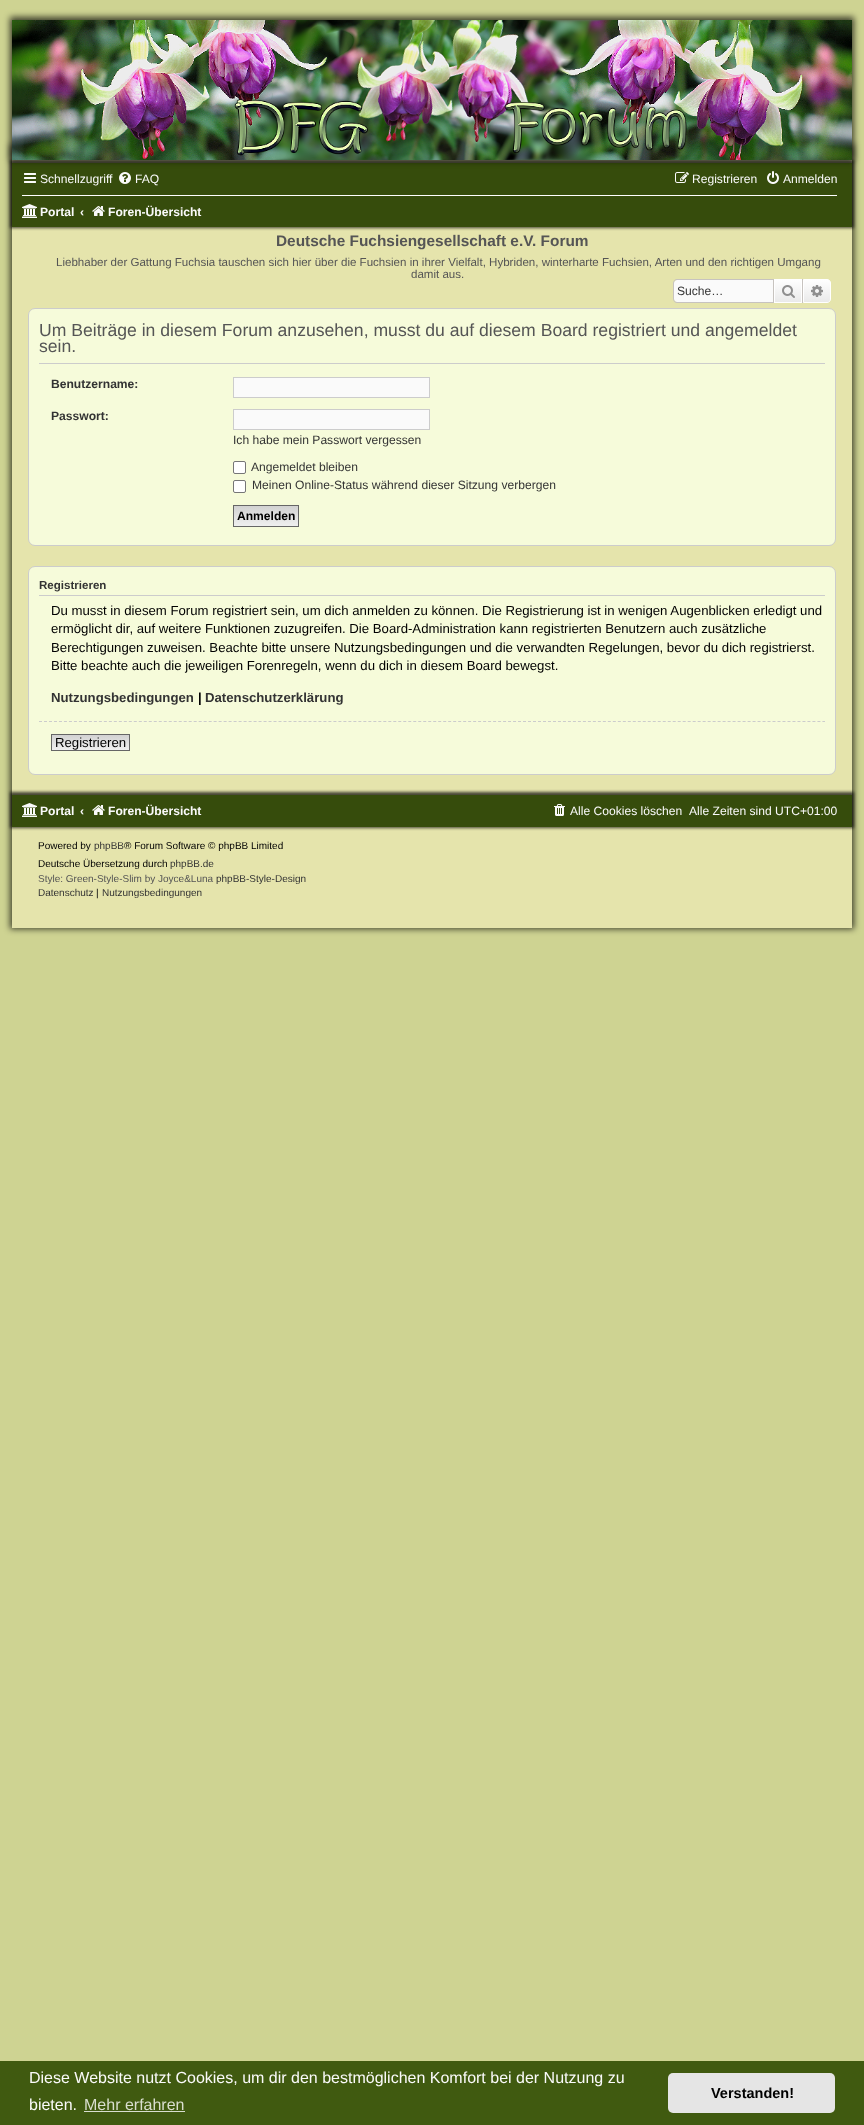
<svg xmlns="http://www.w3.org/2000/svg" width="864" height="2125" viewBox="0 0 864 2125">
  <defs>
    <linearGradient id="g1" gradientUnits="userSpaceOnUse" x1="788" y1="279" x2="788" y2="303"><stop offset="0" stop-color="rgb(255,255,255)"/><stop offset="1" stop-color="rgb(233,233,233)"/></linearGradient>
    <linearGradient id="g2" gradientUnits="userSpaceOnUse" x1="817" y1="279" x2="817" y2="303"><stop offset="0" stop-color="rgb(255,255,255)"/><stop offset="1" stop-color="rgb(233,233,233)"/></linearGradient>
    <linearGradient id="g3" gradientUnits="userSpaceOnUse" x1="266" y1="506" x2="266" y2="526"><stop offset="0" stop-color="rgb(210,210,210)"/><stop offset="1" stop-color="rgb(239,239,239)"/></linearGradient>
    <linearGradient id="g4" gradientUnits="userSpaceOnUse" x1="91" y1="735" x2="91" y2="750"><stop offset="0" stop-color="rgb(210,210,210)"/><stop offset="1" stop-color="rgb(239,239,239)"/></linearGradient>
  </defs>
  <rect width="100%" height="100%" fill="rgb(206,211,146)"/>
  <rect x="10" y="144" width="844" height="785" fill="rgba(2,2,2,0.7)" filter="blur(3px)"/>
  <rect x="12" y="160" width="840" height="768" fill="rgb(229,228,172)"/>
  <rect x="10" y="160" width="844" height="68" fill="rgba(2,2,2,0.7)" filter="blur(1.5px)"/>
  <rect x="12" y="163" width="840" height="64" fill="rgb(54,76,12)"/>
  <rect x="10" y="17" width="844" height="144" fill="rgba(2,2,2,0.7)" filter="blur(3px)"/>
  <image x="12" y="20" width="840" height="140" href="pic1.png"/>
  <image x="24" y="173" width="12" height="10" href="pic2.png"/>
  <text x="40" y="183" font-family="Liberation Sans" font-size="12.1" fill="rgb(250,250,250)">Schnellzugriff</text>
  <image x="119" y="172" width="12" height="12" href="pic3.png"/>
  <text x="135" y="183" font-family="Liberation Sans" font-size="12.1" fill="rgb(250,250,250)">FAQ</text>
  <image x="675" y="172" width="14" height="11" href="pic4.png"/>
  <text x="692" y="183" font-family="Liberation Sans" font-size="12.1" fill="rgb(250,250,250)">Registrieren</text>
  <image x="767" y="171" width="12" height="13" href="pic5.png"/>
  <text x="783" y="183" font-family="Liberation Sans" font-size="12.1" fill="rgb(250,250,250)">Anmelden</text>
  <rect x="22" y="195" width="815" height="1" fill="rgb(255,255,255)"/>
  <image x="22" y="204" width="15" height="14" href="pic6.png"/>
  <g font-family="Liberation Sans" font-size="12.1" font-weight="bold" fill="rgb(250,250,250)">
    <text x="40" y="216">Portal</text>
    <text x="80" y="216">‹</text>
  </g>
  <image x="92" y="206" width="13" height="10" href="pic7.png"/>
  <text x="108" y="216" font-family="Liberation Sans" font-size="12.1" font-weight="bold" fill="rgb(250,250,250)">Foren-Übersicht</text>
  <text x="276" y="246" font-family="Liberation Sans" font-size="15.4" font-weight="bold" fill="rgb(85,85,85)">Deutsche Fuchsiengesellschaft e.V. Forum</text>
  <g font-family="Liberation Sans" font-size="11.55" fill="rgb(85,85,85)">
    <text x="56" y="266">Liebhaber der Gattung Fuchsia tauschen sich hier über die Fuchsien in ihrer Vielfalt, Hybriden, winterharte Fuchsien, Arten und den richtigen Umgang</text>
    <text x="411" y="278">damit aus.</text>
  </g>
  <path d="M677 280H773V302H677C675.5 302 674 300.5 674 299V283C674 281.5 675.5 280 677 280Z" fill="rgb(250,250,250)"/>
  <path d="M677 279H773V303H677C675 303 673 301 673 299V283C673 281 675 279 677 279ZM677 280H773V302H677C675 302 674 301 674 299V283C674 281 675 280 677 280Z" fill="rgb(199,195,191)" fill-rule="evenodd"/>
  <text x="677" y="295" font-family="Liberation Sans" font-size="12.1" fill="rgb(51,51,51)">Suche…</text>
  <rect x="775" y="280" width="26" height="22" fill="url(#g1)"/>
  <rect x="774.5" y="279.5" width="27" height="23" fill="none" stroke="rgb(255,255,255)"/>
  <rect x="802" y="279" width="1" height="24" fill="rgb(199,195,191)"/>
  <rect x="773" y="279" width="1" height="24" fill="rgb(199,195,191)"/>
  <image x="782" y="285" width="13" height="13" href="pic8.png"/>
  <path d="M803.5 279.5H827C829 279.5 830.5 281 830.5 283V299C830.5 301 829 302.5 827 302.5H803.5Z" fill="url(#g2)" stroke="rgb(255,255,255)"/>
  <image x="811" y="285" width="12" height="12" href="pic9.png"/>
  <rect x="28.5" y="308.5" width="807" height="237" rx="6.5" fill="rgb(246,251,218)" stroke="rgb(204,204,204)"/>
  <rect x="39" y="363" width="786" height="1" fill="rgb(204,204,204)"/>
  <g font-family="Liberation Sans" font-size="17.6" fill="rgb(85,85,85)">
    <text>
      <tspan x="39" y="336">Um Beiträge in diesem Forum anzusehen, musst du auf diesem Board registriert und angemeldet</tspan>
      <tspan x="39" y="352">sein.</tspan>
    </text>
  </g>
  <text x="51" y="388" font-family="Liberation Sans" font-size="12.1" font-weight="bold" fill="rgb(51,51,51)">Benutzername:</text>
  <rect x="233.5" y="377.5" width="196" height="20" fill="rgb(250,250,250)" stroke="rgb(204,204,204)"/>
  <text x="51" y="420" font-family="Liberation Sans" font-size="12.1" font-weight="bold" fill="rgb(51,51,51)">Passwort:</text>
  <rect x="233.5" y="409.5" width="196" height="20" fill="rgb(250,250,250)" stroke="rgb(204,204,204)"/>
  <text x="233" y="444" font-family="Liberation Sans" font-size="12.1" fill="rgb(51,51,51)">Ich habe mein Passwort vergessen</text>
  <rect x="233.5" y="461.5" width="12" height="12" rx="1.5" fill="rgb(255,255,255)" stroke="rgb(118,118,118)"/>
  <text x="251" y="471" font-family="Liberation Sans" font-size="12.1" fill="rgb(51,51,51)">Angemeldet bleiben</text>
  <rect x="233.5" y="480.5" width="12" height="12" rx="1.5" fill="rgb(255,255,255)" stroke="rgb(118,118,118)"/>
  <text x="252" y="489" font-family="Liberation Sans" font-size="12.1" fill="rgb(51,51,51)">Meinen Online-Status während dieser Sitzung verbergen</text>
  <rect x="234" y="506" width="64" height="20" fill="url(#g3)"/>
  <rect x="233.5" y="505.5" width="65" height="21" fill="none" stroke="rgb(102,102,102)"/>
  <text x="237" y="520" font-family="Liberation Sans" font-size="12.1" font-weight="bold" fill="rgb(0,0,0)">Anmelden</text>
  <rect x="28.5" y="566.5" width="807" height="208" rx="6.5" fill="rgb(246,251,218)" stroke="rgb(204,204,204)"/>
  <rect x="39" y="595" width="786" height="1" fill="rgb(204,204,204)"/>
  <text x="39" y="589" font-family="Liberation Sans" font-size="11.55" font-weight="bold" fill="rgb(51,51,51)">Registrieren</text>
  <g font-family="Liberation Sans" font-size="13.2" fill="rgb(0,0,0)">
    <text>
      <tspan x="51" y="615">Du musst in diesem Forum registriert sein, um dich anmelden zu können. Die Registrierung ist in wenigen Augenblicken erledigt und</tspan>
      <tspan x="51" y="633">ermöglicht dir, auf weitere Funktionen zuzugreifen. Die Board-Administration kann registrierten Benutzern auch zusätzliche</tspan>
      <tspan x="51" y="652">Berechtigungen zuweisen. Beachte bitte unsere Nutzungsbedingungen und die verwandten Regelungen, bevor du dich registrierst.</tspan>
      <tspan x="51" y="670">Bitte beachte auch die jeweiligen Forenregeln, wenn du dich in diesem Board bewegst.</tspan>
    </text>
  </g>
  <text x="51" y="702" font-family="Liberation Sans" font-size="13.2" font-weight="bold" fill="rgb(51,51,51)">Nutzungsbedingungen</text>
  <text x="198" y="702" font-family="Liberation Sans" font-size="13.2" font-weight="bold" fill="rgb(0,0,0)">|</text>
  <text x="205" y="702" font-family="Liberation Sans" font-size="13.2" font-weight="bold" fill="rgb(51,51,51)">Datenschutzerklärung</text>
  <path d="M39 721.5H825" fill="none" stroke="rgb(204,204,204)" stroke-dasharray="3 1.99"/>
  <rect x="52" y="735" width="77" height="15" fill="url(#g4)"/>
  <rect x="51.5" y="734.5" width="78" height="16" fill="none" stroke="rgb(102,102,102)"/>
  <text x="55" y="747" font-family="Liberation Sans" font-size="13.2" fill="rgb(0,0,0)">Registrieren</text>
  <rect x="10" y="792" width="844" height="36" fill="rgba(2,2,2,0.7)" filter="blur(1.5px)"/>
  <rect x="12" y="795" width="840" height="32" fill="rgb(54,76,12)"/>
  <image x="22" y="803" width="15" height="14" href="pic6.png"/>
  <g font-family="Liberation Sans" font-size="12.1" font-weight="bold" fill="rgb(250,250,250)">
    <text x="40" y="815">Portal</text>
    <text x="80" y="815">‹</text>
  </g>
  <image x="92" y="805" width="13" height="10" href="pic7.png"/>
  <text x="108" y="815" font-family="Liberation Sans" font-size="12.1" font-weight="bold" fill="rgb(250,250,250)">Foren-Übersicht</text>
  <image x="554" y="804" width="11" height="12" href="pic10.png"/>
  <g font-family="Liberation Sans" font-size="12.1" fill="rgb(250,250,250)">
    <text x="570" y="815">Alle Cookies löschen</text>
    <text x="689" y="815">Alle Zeiten sind UTC+01:00</text>
  </g>
  <text x="38" y="849" font-family="Liberation Sans" font-size="10" fill="rgb(0,0,0)">Powered by</text>
  <text x="94" y="849" font-family="Liberation Sans" font-size="10" fill="rgb(51,51,51)">phpBB</text>
  <g font-family="Liberation Sans" font-size="10" fill="rgb(0,0,0)">
    <text x="124" y="849">® Forum Software © phpBB Limited</text>
    <text x="38" y="867">Deutsche Übersetzung durch</text>
  </g>
  <text x="170" y="867" font-family="Liberation Sans" font-size="10" fill="rgb(51,51,51)">phpBB.de</text>
  <text x="38" y="882" font-family="Liberation Sans" font-size="10" fill="rgb(85,85,85)">Style: Green-Style-Slim by Joyce&amp;Luna</text>
  <g font-family="Liberation Sans" font-size="10" fill="rgb(51,51,51)">
    <text x="216" y="882">phpBB-Style-Design</text>
    <text x="38" y="896">Datenschutz</text>
  </g>
  <text x="96" y="896" font-family="Liberation Sans" font-size="10" fill="rgb(0,0,0)">|</text>
  <text x="102" y="896" font-family="Liberation Sans" font-size="10" fill="rgb(51,51,51)">Nutzungsbedingungen</text>
  <rect x="0" y="2061" width="864" height="64" fill="rgb(64,90,16)"/>
  <g font-family="Liberation Sans" font-size="16" fill="rgb(250,250,250)">
    <text>
      <tspan x="29" y="2083">Diese Website nutzt Cookies, um dir den bestmöglichen Komfort bei der Nutzung zu</tspan>
      <tspan x="29" y="2110">bieten.</tspan>
    </text>
  </g>
  <text x="84" y="2110" font-family="Liberation Sans" font-size="16" fill="rgb(217,222,207)">Mehr erfahren</text>
  <rect x="84" y="2111" width="101" height="1" fill="rgb(217,222,207)"/>
  <rect x="668" y="2073" width="167" height="40" rx="5" fill="rgb(229,229,229)"/>
  <text x="711" y="2098" font-family="Liberation Sans" font-size="14.5" font-weight="bold" fill="rgb(0,0,0)">Verstanden!</text>
</svg>
